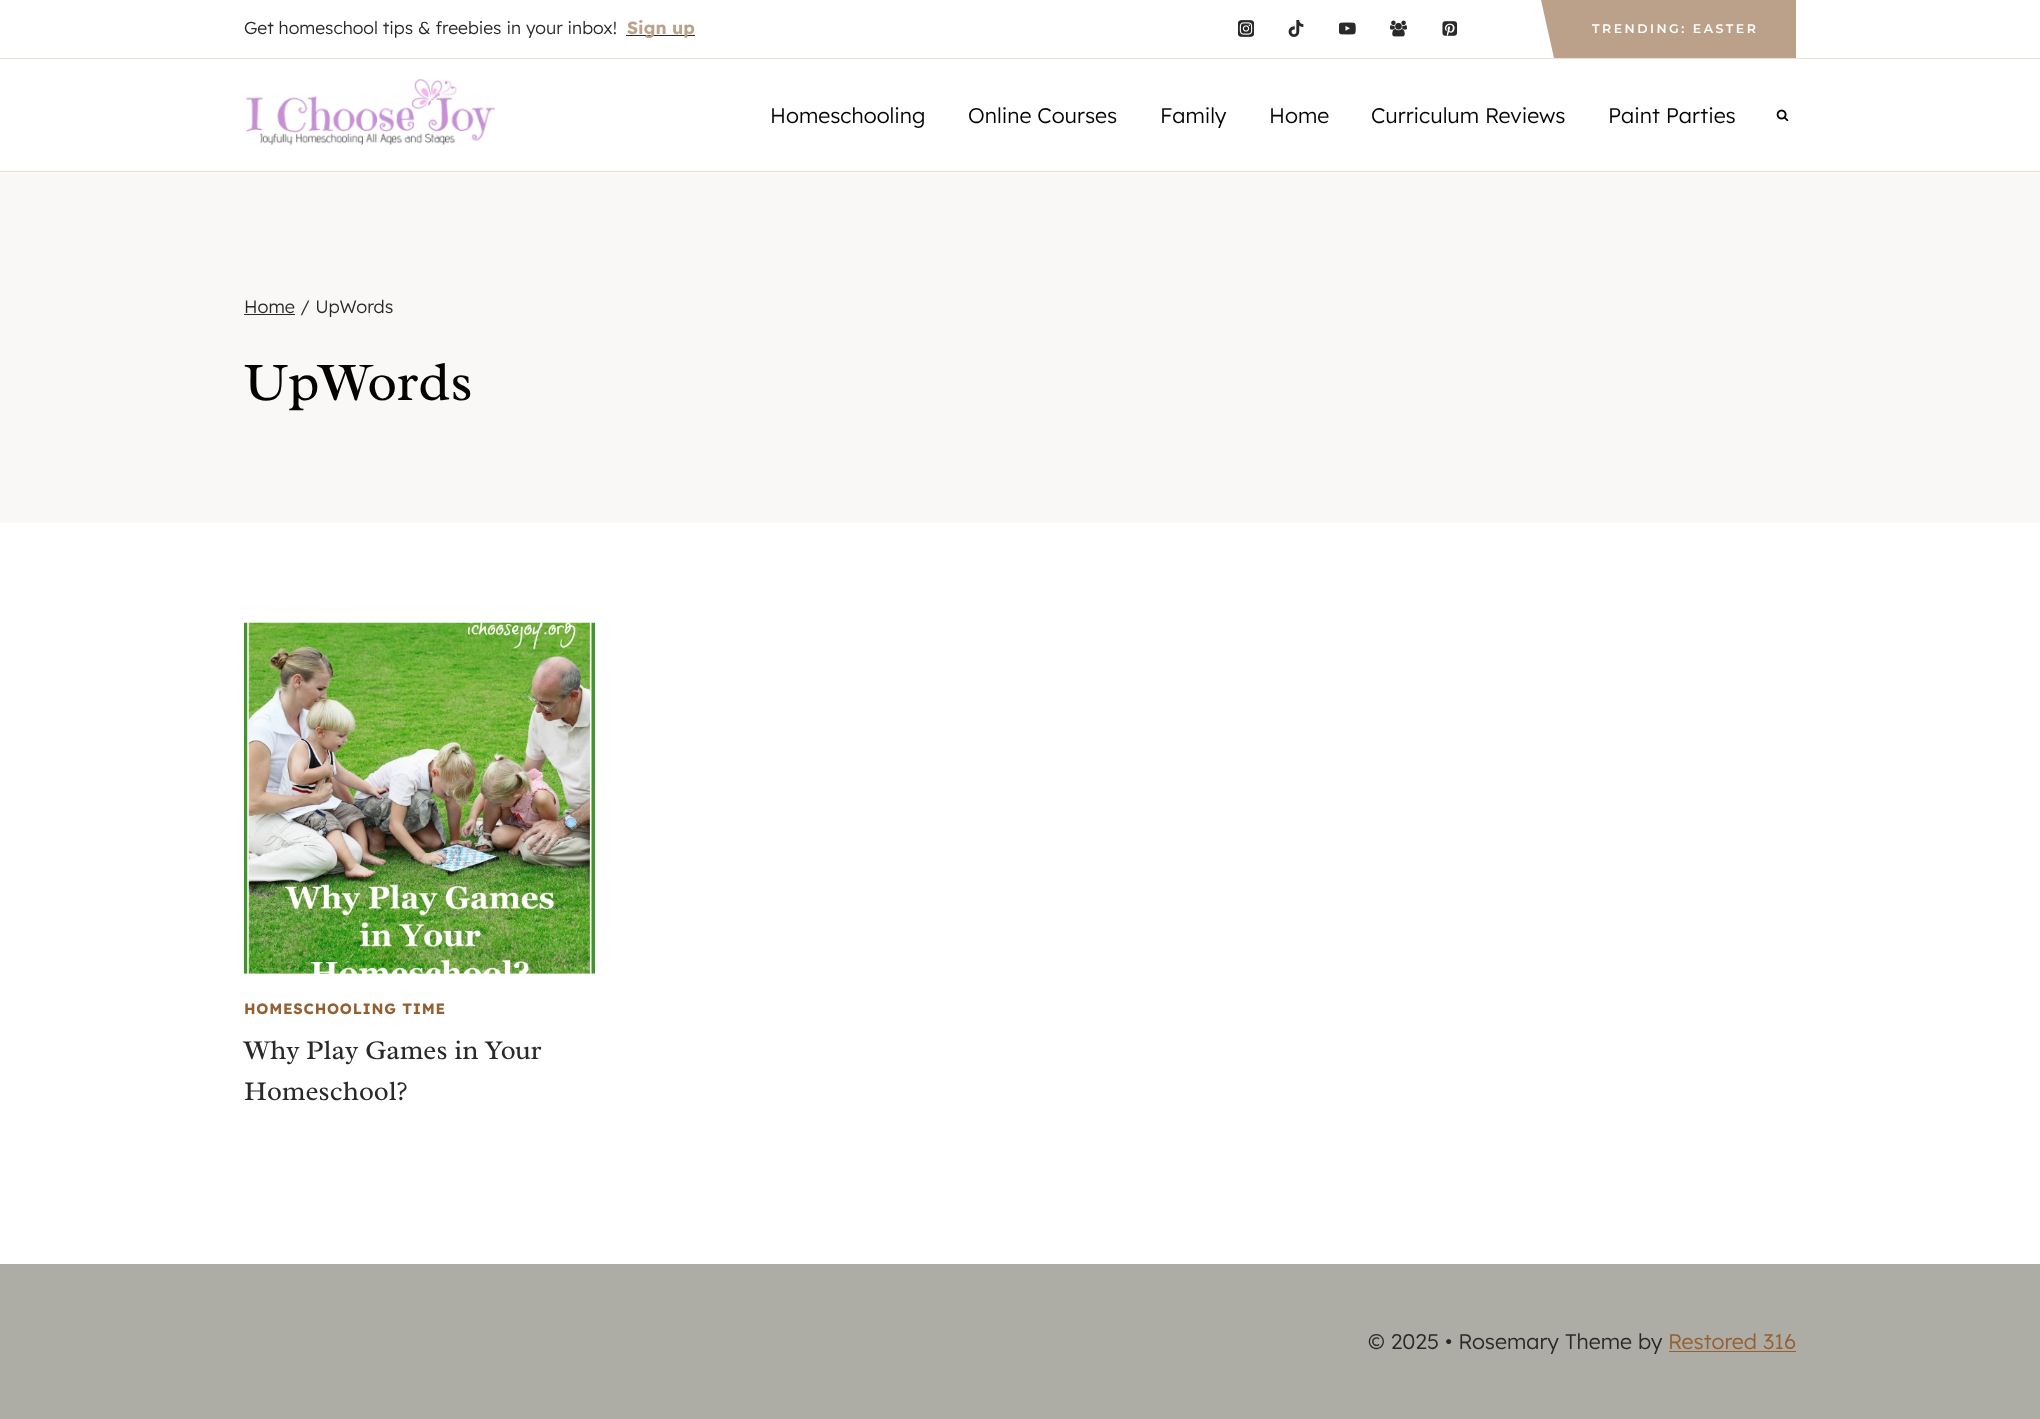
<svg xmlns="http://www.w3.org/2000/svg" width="2040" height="1419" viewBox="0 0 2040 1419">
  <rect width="100%" height="100%" fill="rgb(255,255,255)"/>
  <rect x="0" y="58" width="2040" height="1" fill="rgb(236,224,210)"/>
  <text x="244" y="34" font-family="Lexend" font-size="17.5" font-weight="300" fill="rgb(41,41,41)">Get homeschool tips &amp; freebies in your inbox!</text>
  <rect x="626" y="35" width="69" height="1" fill="rgb(41,41,41)"/>
  <text x="627" y="34" font-family="Lexend" font-size="17.5" font-weight="bold" fill="rgb(187,161,137)">Sign up</text>
  <image x="1238" y="20" width="16" height="17" href="pic1.png"/>
  <image x="1288" y="20" width="16" height="17" href="pic2.png"/>
  <image x="1339" y="22" width="17" height="13" href="pic3.png"/>
  <image x="1390" y="20" width="17" height="17" href="pic4.png"/>
  <image x="1442" y="21" width="16" height="15" href="pic5.png"/>
  <path d="M1541 0H1782L1796 58H1554Z" fill="rgb(187,161,137)"/>
  <rect x="1782" y="0" width="14" height="58" fill="rgb(187,161,137)"/>
  <text x="1592" y="33" font-family="Montserrat" font-size="12.5" font-weight="100" letter-spacing="2.5" fill="rgb(255,255,255)">TRENDING: EASTER</text>
  <rect x="0" y="171" width="2040" height="1" fill="rgb(236,224,210)"/>
  <image x="246" y="78" width="249" height="67" href="pic6.png"/>
  <g font-family="Lexend" font-size="21.25" font-weight="300" fill="rgb(3,3,3)">
    <text x="770" y="123">Homeschooling</text>
    <text x="968" y="123">Online Courses</text>
    <text x="1160" y="123">Family</text>
    <text x="1269" y="123">Home</text>
    <text x="1371" y="123">Curriculum Reviews</text>
    <text x="1608" y="123">Paint Parties</text>
  </g>
  <image x="1776" y="109" width="13" height="12" href="pic7.png"/>
  <rect x="0" y="173" width="2040" height="350" fill="rgb(249,248,246)"/>
  <rect x="244" y="314" width="51" height="1" fill="rgb(41,41,41)"/>
  <text x="244" y="313" font-family="Lexend" font-size="18" font-weight="300" fill="rgb(41,41,41)">Home / UpWords</text>
  <text x="244" y="400" font-family="Radley" font-size="55" fill="rgb(3,3,3)">UpWords</text>
  <image x="243" y="622" width="352" height="352" href="pic8.png"/>
  <text x="244" y="1014" font-family="Lexend" font-size="14.9" font-weight="bold" letter-spacing="0.75" fill="rgb(149,95,50)">HOMESCHOOLING TIME</text>
  <g font-family="Radley" font-size="27.5" fill="rgb(41,41,41)">
    <text>
      <tspan x="244" y="1059">Why Play Games in Your</tspan>
      <tspan x="244" y="1100">Homeschool?</tspan>
    </text>
  </g>
  <rect x="0" y="1264" width="2040" height="155" fill="rgb(173,172,165)"/>
  <text x="1368" y="1349" font-family="Lexend" font-size="21.25" font-weight="300" fill="rgb(41,41,41)">© 2025 • Rosemary Theme by</text>
  <text x="1668" y="1349" font-family="Lexend" font-size="21.25" font-weight="300" fill="rgb(149,95,50)">Restored 316</text>
  <rect x="1669" y="1351" width="127" height="1" fill="rgb(149,95,50)"/>
</svg>
